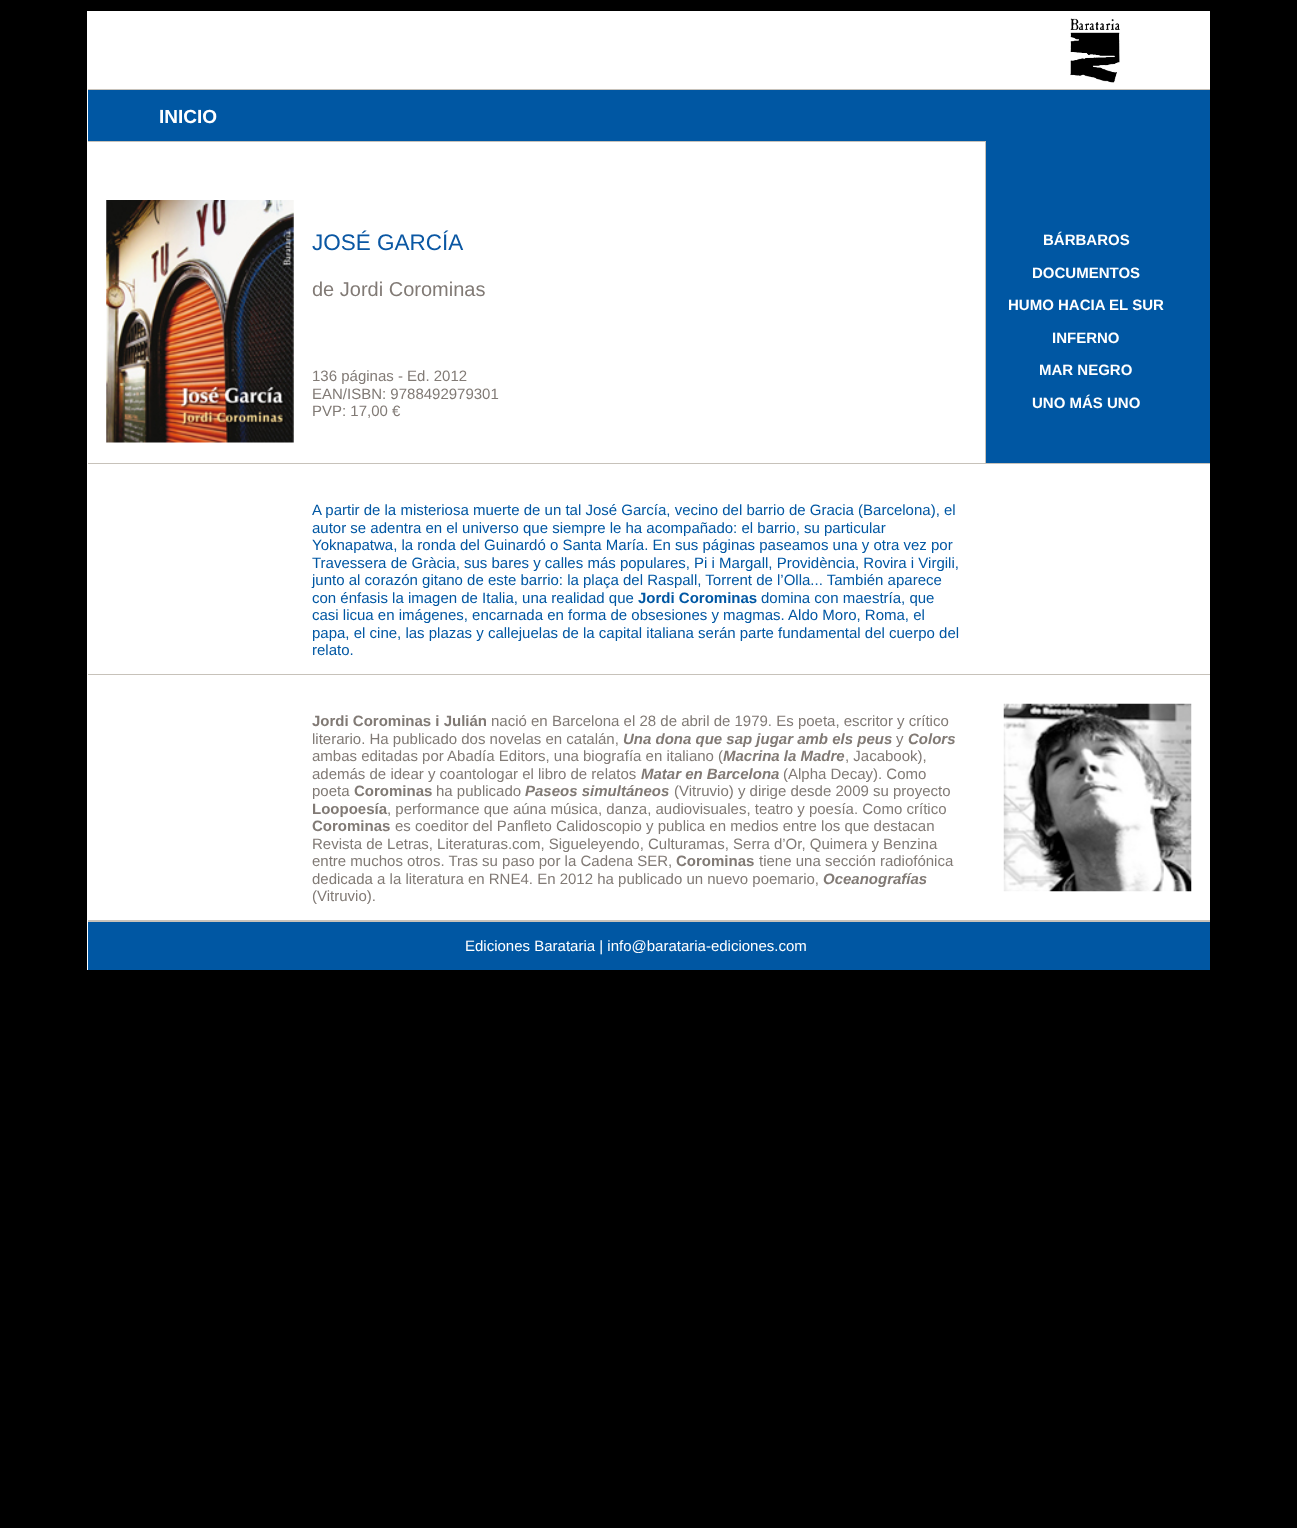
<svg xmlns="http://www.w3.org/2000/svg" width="1297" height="1528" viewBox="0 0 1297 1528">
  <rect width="100%" height="100%" fill="rgb(0,0,0)"/>
  <rect x="87" y="11" width="1123" height="959" fill="rgb(255,255,255)"/>
  <image x="1070" y="18" width="50" height="65" href="pic1.png"/>
  <rect x="88" y="90" width="1122" height="51" fill="rgb(0,87,163)"/>
  <rect x="88" y="89" width="1122" height="1" fill="rgb(199,194,186)"/>
  <text x="159" y="123" font-family="Liberation Sans" font-size="19" font-weight="bold" fill="rgb(255,255,255)">INICIO</text>
  <rect x="88" y="141" width="897" height="1" fill="rgb(199,194,186)"/>
  <rect x="986" y="141" width="224" height="322" fill="rgb(0,87,163)"/>
  <rect x="985" y="141" width="1" height="322" fill="rgb(199,194,186)"/>
  <image x="106" y="200" width="188" height="243" href="pic2.png"/>
  <text x="312" y="250" font-family="Liberation Sans" font-size="22.5" fill="rgb(10,87,163)">JOSÉ GARCÍA</text>
  <text x="312" y="296" font-family="Liberation Sans" font-size="20" fill="rgb(129,122,117)">de Jordi Corominas</text>
  <g font-family="Liberation Sans" font-size="15" fill="rgb(129,122,117)">
    <text>
      <tspan x="312" y="381">136 páginas - Ed. 2012</tspan>
      <tspan x="312" y="399">EAN/ISBN: 9788492979301</tspan>
      <tspan x="312" y="416">PVP: 17,00 €</tspan>
    </text>
  </g>
  <g font-family="Liberation Sans" font-size="15" font-weight="bold" fill="rgb(255,255,255)">
    <text x="1043" y="245">BÁRBAROS</text>
    <text x="1032" y="278">DOCUMENTOS</text>
    <text x="1008" y="310">HUMO HACIA EL SUR</text>
    <text x="1052" y="343">INFERNO</text>
    <text x="1039" y="375">MAR NEGRO</text>
    <text x="1032" y="408">UNO MÁS UNO</text>
  </g>
  <rect x="88" y="463" width="1122" height="1" fill="rgb(199,194,186)"/>
  <g font-family="Liberation Sans" font-size="15" fill="rgb(0,87,163)">
    <text>
      <tspan x="312" y="515">A partir de la misteriosa muerte de un tal José García, vecino del barrio de Gracia (Barcelona), el</tspan>
      <tspan x="312" y="533">autor se adentra en el universo que siempre le ha acompañado: el barrio, su particular</tspan>
      <tspan x="312" y="550">Yoknapatwa, la ronda del Guinardó o Santa María. En sus páginas paseamos una y otra vez por</tspan>
      <tspan x="312" y="568">Travessera de Gràcia, sus bares y calles más populares, Pi i Margall, Providència, Rovira i Virgili,</tspan>
      <tspan x="312" y="585">junto al corazón gitano de este barrio: la plaça del Raspall, Torrent de l’Olla... También aparece</tspan>
      <tspan x="312" y="603">con énfasis la imagen de Italia, una realidad que</tspan>
    </text>
  </g>
  <text x="638" y="603" font-family="Liberation Sans" font-size="15" font-weight="bold" fill="rgb(0,87,163)">Jordi Corominas</text>
  <g font-family="Liberation Sans" font-size="15" fill="rgb(0,87,163)">
    <text x="761" y="603">domina con maestría, que</text>
    <text>
      <tspan x="312" y="620">casi licua en imágenes, encarnada en forma de obsesiones y magmas. Aldo Moro, Roma, el</tspan>
      <tspan x="312" y="638">papa, el cine, las plazas y callejuelas de la capital italiana serán parte fundamental del cuerpo del</tspan>
      <tspan x="312" y="655">relato.</tspan>
    </text>
  </g>
  <rect x="88" y="674" width="1122" height="1" fill="rgb(199,194,186)"/>
  <text x="312" y="726" font-family="Liberation Sans" font-size="15" font-weight="bold" fill="rgb(129,122,117)">Jordi Corominas i Julián</text>
  <g font-family="Liberation Sans" font-size="15" fill="rgb(129,122,117)">
    <text x="491" y="726">nació en Barcelona el 28 de abril de 1979. Es poeta, escritor y crítico</text>
    <text x="312" y="744">literario. Ha publicado dos novelas en catalán,</text>
  </g>
  <text x="623" y="744" font-family="Liberation Sans" font-size="15" font-weight="bold" font-style="italic" fill="rgb(129,122,117)">Una dona que sap jugar amb els peus</text>
  <text x="896" y="744" font-family="Liberation Sans" font-size="15" fill="rgb(129,122,117)">y</text>
  <text x="908" y="744" font-family="Liberation Sans" font-size="15" font-weight="bold" font-style="italic" fill="rgb(129,122,117)">Colors</text>
  <text x="312" y="761" font-family="Liberation Sans" font-size="15" fill="rgb(129,122,117)">ambas editadas por Abadía Editors, una biografía en italiano (</text>
  <text x="723" y="761" font-family="Liberation Sans" font-size="15" font-weight="bold" font-style="italic" fill="rgb(129,122,117)">Macrina la Madre</text>
  <g font-family="Liberation Sans" font-size="15" fill="rgb(129,122,117)">
    <text x="845" y="761">, Jacabook),</text>
    <text x="312" y="779">además de idear y coantologar el libro de relatos</text>
  </g>
  <text x="641" y="779" font-family="Liberation Sans" font-size="15" font-weight="bold" font-style="italic" fill="rgb(129,122,117)">Matar en Barcelona</text>
  <g font-family="Liberation Sans" font-size="15" fill="rgb(129,122,117)">
    <text x="783" y="779">(Alpha Decay). Como</text>
    <text x="312" y="796">poeta</text>
  </g>
  <text x="354" y="796" font-family="Liberation Sans" font-size="15" font-weight="bold" fill="rgb(129,122,117)">Corominas</text>
  <text x="436" y="796" font-family="Liberation Sans" font-size="15" fill="rgb(129,122,117)">ha publicado</text>
  <text x="525" y="796" font-family="Liberation Sans" font-size="15" font-weight="bold" font-style="italic" fill="rgb(129,122,117)">Paseos simultáneos</text>
  <text x="674" y="796" font-family="Liberation Sans" font-size="15" fill="rgb(129,122,117)">(Vitruvio) y dirige desde 2009 su proyecto</text>
  <text x="312" y="814" font-family="Liberation Sans" font-size="15" font-weight="bold" fill="rgb(129,122,117)">Loopoesía</text>
  <text x="387" y="814" font-family="Liberation Sans" font-size="15" fill="rgb(129,122,117)">, performance que aúna música, danza, audiovisuales, teatro y poesía. Como crítico</text>
  <text x="312" y="831" font-family="Liberation Sans" font-size="15" font-weight="bold" fill="rgb(129,122,117)">Corominas</text>
  <g font-family="Liberation Sans" font-size="15" fill="rgb(129,122,117)">
    <text x="395" y="831">es coeditor del Panfleto Calidoscopio y publica en medios entre los que destacan</text>
    <text>
      <tspan x="312" y="849">Revista de Letras, Literaturas.com, Sigueleyendo, Culturamas, Serra d’Or, Quimera y Benzina</tspan>
      <tspan x="312" y="866">entre muchos otros. Tras su paso por la Cadena SER,</tspan>
    </text>
  </g>
  <text x="676" y="866" font-family="Liberation Sans" font-size="15" font-weight="bold" fill="rgb(129,122,117)">Corominas</text>
  <g font-family="Liberation Sans" font-size="15" fill="rgb(129,122,117)">
    <text x="759" y="866">tiene una sección radiofónica</text>
    <text x="312" y="884">dedicada a la literatura en RNE4. En 2012 ha publicado un nuevo poemario,</text>
  </g>
  <text x="823" y="884" font-family="Liberation Sans" font-size="15" font-weight="bold" font-style="italic" fill="rgb(129,122,117)">Oceanografías</text>
  <text x="312" y="901" font-family="Liberation Sans" font-size="15" fill="rgb(129,122,117)">(Vitruvio).</text>
  <image x="1003" y="703" width="189" height="189" href="pic3.png"/>
  <rect x="88" y="922" width="1122" height="48" fill="rgb(0,87,163)"/>
  <rect x="88" y="920" width="1122" height="1" fill="rgb(199,194,186)"/>
  <rect x="88" y="921" width="1122" height="1" fill="rgb(199,194,186)"/>
  <text x="465" y="951" font-family="Liberation Sans" font-size="15" fill="rgb(255,255,255)">Ediciones Barataria | info@barataria-ediciones.com</text>
</svg>
